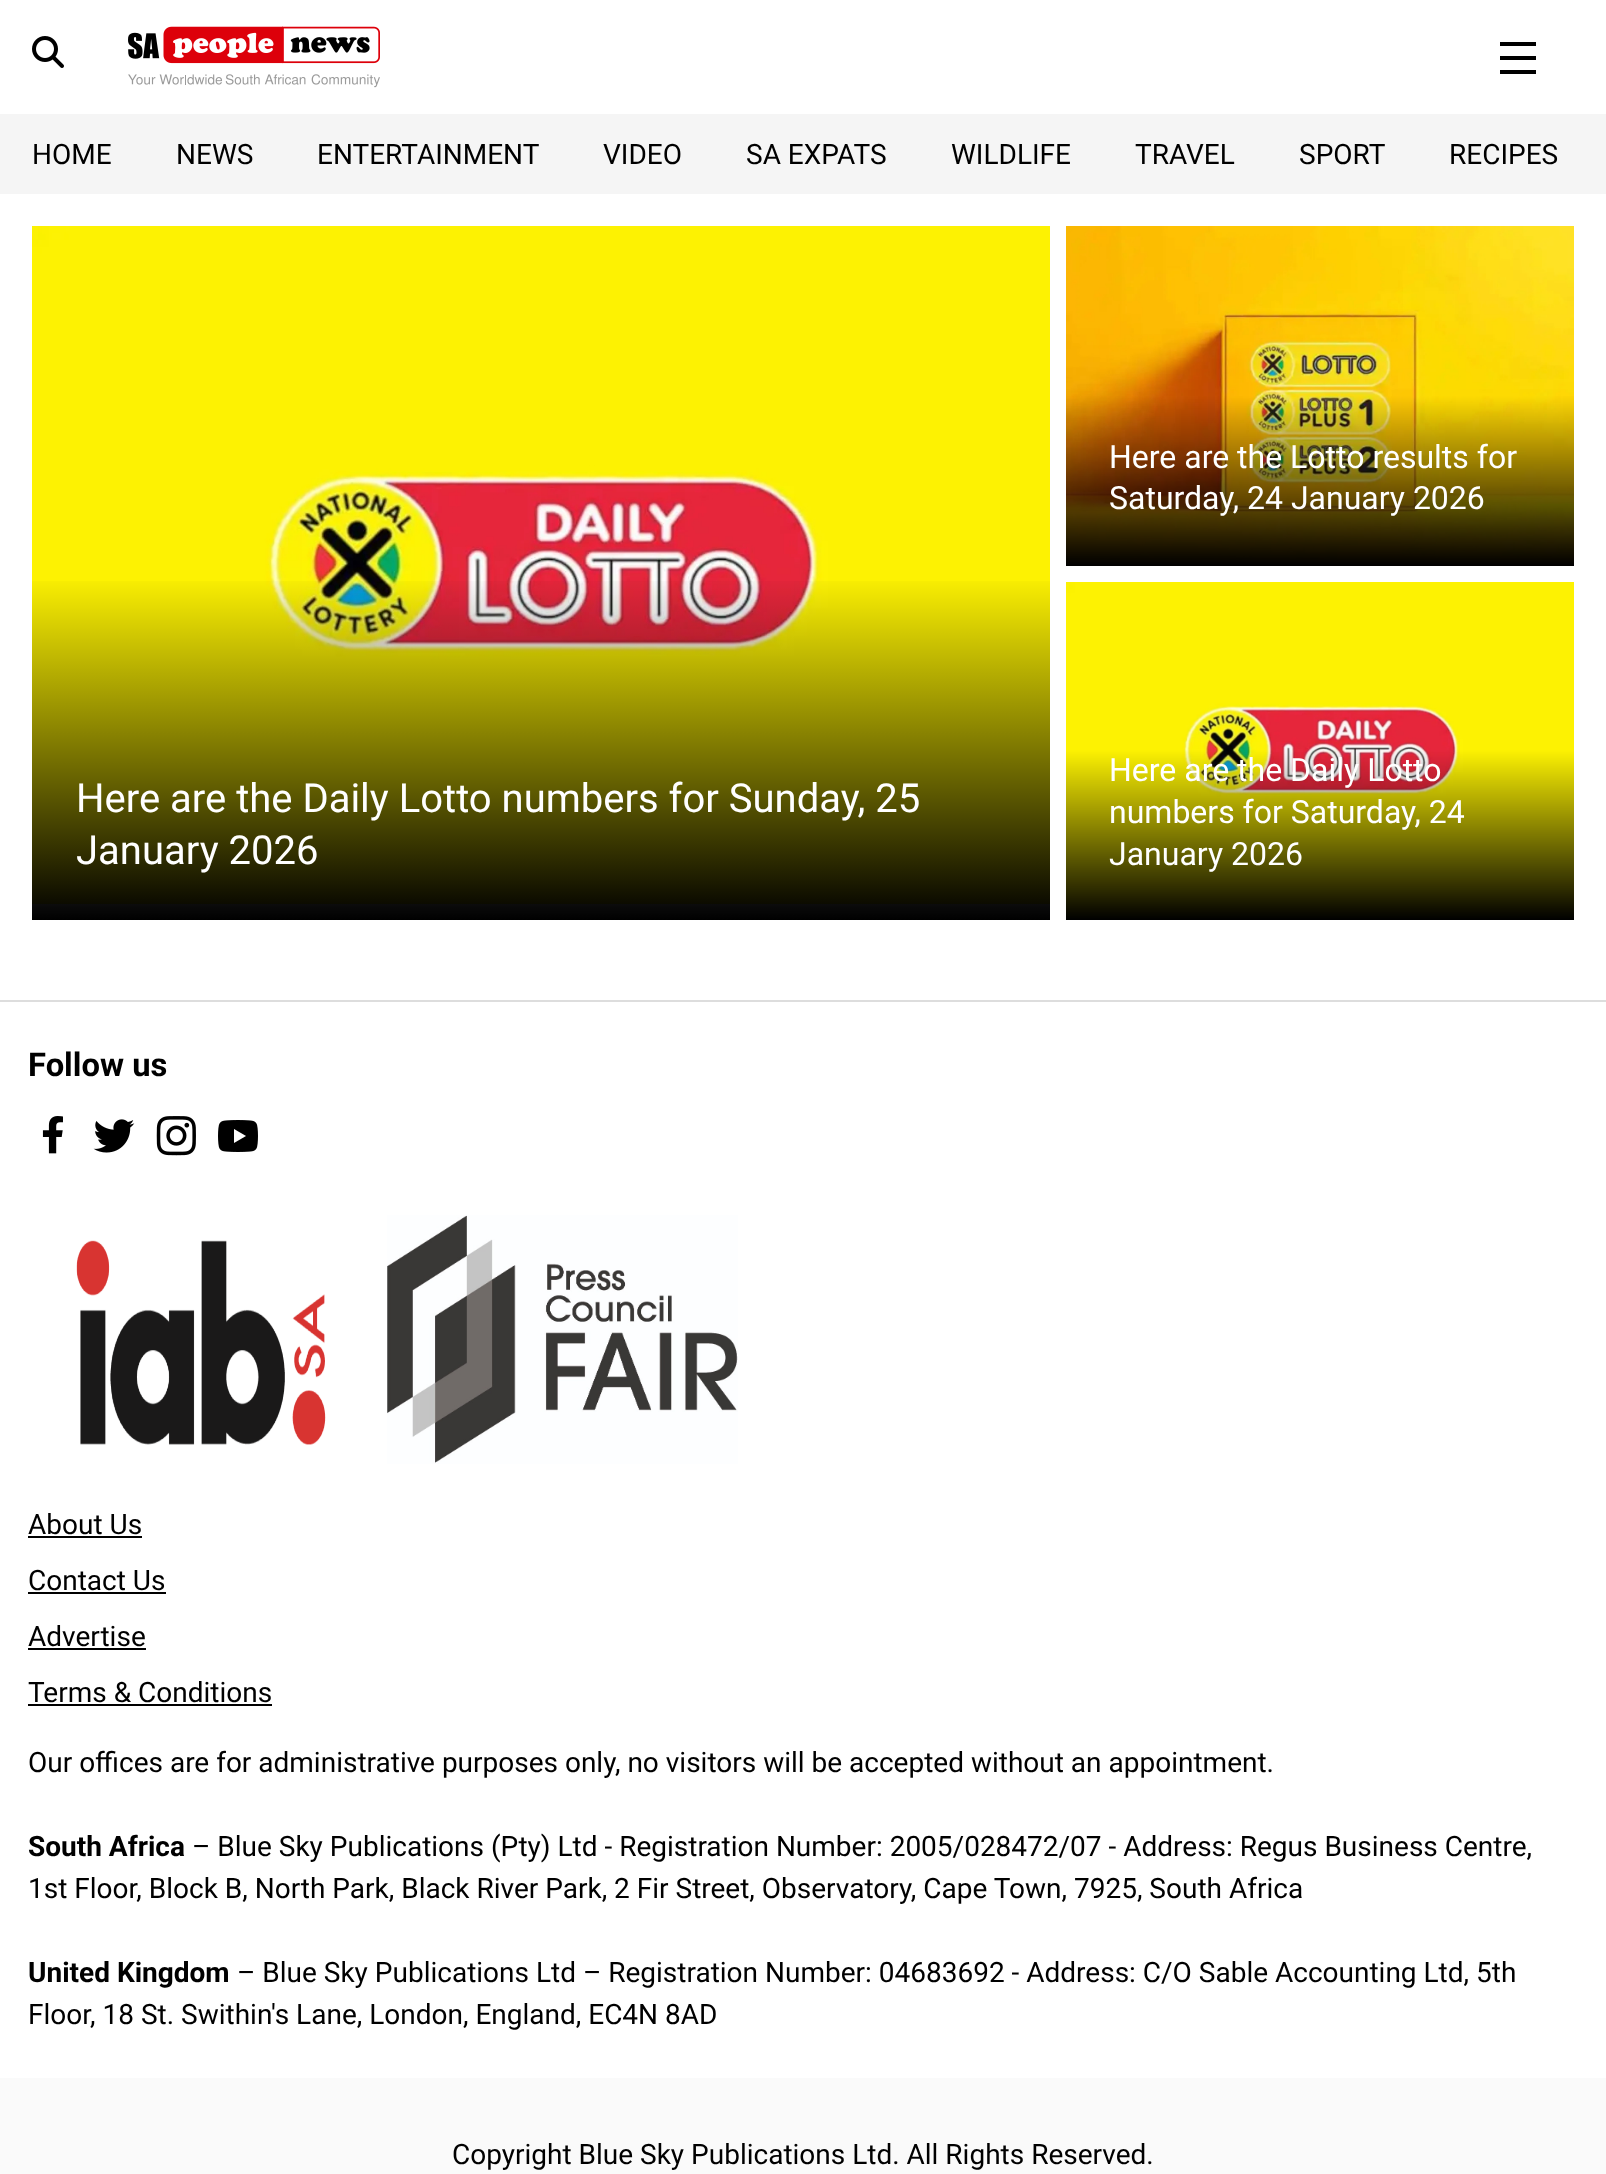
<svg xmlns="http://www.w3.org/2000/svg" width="1606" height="2174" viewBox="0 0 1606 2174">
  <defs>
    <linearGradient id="g1" gradientUnits="userSpaceOnUse" x1="541" y1="574" x2="541" y2="920"><stop offset="0" stop-color="rgb(0,0,0)" stop-opacity="0"/><stop offset="1" stop-color="rgb(0,0,0)"/></linearGradient>
  </defs>
  <rect width="100%" height="100%" fill="rgb(255,255,255)"/>
  <image x="32" y="36" width="32" height="32" href="pic1.png"/>
  <image x="128" y="26" width="252" height="62" href="pic2.png"/>
  <path d="M1500 42H1536V46H1500ZM1500 56H1536V60H1500ZM1500 70H1536V74H1500Z" fill="rgb(0,0,0)"/>
  <rect x="0" y="114" width="1606" height="80" fill="rgb(245,245,245)"/>
  <g font-family="Roboto" font-size="28" fill="rgb(0,0,0)">
    <text x="32" y="164">HOME</text>
    <text x="176" y="164">NEWS</text>
    <text x="317" y="164">ENTERTAINMENT</text>
    <text x="603" y="164">VIDEO</text>
    <text x="746" y="164">SA EXPATS</text>
    <text x="951" y="164">WILDLIFE</text>
    <text x="1135" y="164">TRAVEL</text>
    <text x="1299" y="164">SPORT</text>
    <text x="1449" y="164">RECIPES</text>
  </g>
  <image x="1066" y="226" width="508" height="340" href="pic3.png"/>
  <g font-family="Roboto" font-size="32" fill="rgb(255,255,255)">
    <text>
      <tspan x="1109" y="468">Here are the Lotto results for</tspan>
      <tspan x="1109" y="509">Saturday, 24 January 2026</tspan>
    </text>
  </g>
  <image x="32" y="226" width="1018" height="678" href="pic4.png"/>
  <rect x="32" y="581" width="1018" height="339" fill="url(#g1)"/>
  <g font-family="Roboto" font-size="40" fill="rgb(255,255,255)">
    <text>
      <tspan x="76" y="812">Here are the Daily Lotto numbers for Sunday, 25</tspan>
      <tspan x="76" y="864">January 2026</tspan>
    </text>
  </g>
  <image x="1066" y="582" width="508" height="338" href="pic5.png"/>
  <g font-family="Roboto" font-size="32" fill="rgb(255,255,255)">
    <text>
      <tspan x="1109" y="781">Here are the Daily Lotto</tspan>
      <tspan x="1109" y="823">numbers for Saturday, 24</tspan>
      <tspan x="1109" y="865">January 2026</tspan>
    </text>
  </g>
  <rect x="0" y="1000" width="1606" height="2" fill="rgb(221,221,221)"/>
  <text x="28" y="1076" font-family="Roboto" font-size="32.75" font-weight="bold" fill="rgb(0,0,0)">Follow us</text>
  <image x="42" y="1116" width="21" height="38" href="pic6.png"/>
  <image x="93" y="1119" width="42" height="34" href="pic7.png"/>
  <image x="156" y="1116" width="40" height="40" href="pic8.png"/>
  <image x="218" y="1120" width="40" height="32" href="pic9.png"/>
  <image x="76" y="1240" width="250" height="205" href="pic10.png"/>
  <image x="387" y="1215" width="351" height="249" href="pic11.png"/>
  <text x="28" y="1534" font-family="Roboto" font-size="28" fill="rgb(0,0,0)">About Us</text>
  <rect x="28" y="1536" width="114" height="2" fill="rgb(0,0,0)"/>
  <text x="28" y="1590" font-family="Roboto" font-size="28" fill="rgb(0,0,0)">Contact Us</text>
  <rect x="28" y="1592" width="138" height="2" fill="rgb(0,0,0)"/>
  <text x="28" y="1646" font-family="Roboto" font-size="28" fill="rgb(0,0,0)">Advertise</text>
  <rect x="28" y="1648" width="118" height="2" fill="rgb(0,0,0)"/>
  <text x="28" y="1702" font-family="Roboto" font-size="28" fill="rgb(0,0,0)">Terms &amp; Conditions</text>
  <rect x="28" y="1704" width="244" height="2" fill="rgb(0,0,0)"/>
  <text x="28" y="1772" font-family="Roboto" font-size="28" fill="rgb(0,0,0)">Our offices are for administrative purposes only, no visitors will be accepted without an appointment.</text>
  <text x="28" y="1856" font-family="Roboto" font-size="28" font-weight="bold" fill="rgb(0,0,0)">South Africa</text>
  <g font-family="Roboto" font-size="28" fill="rgb(0,0,0)">
    <text x="192" y="1856">– Blue Sky Publications (Pty) Ltd - Registration Number: 2005/028472/07 - Address: Regus Business Centre,</text>
    <text x="28" y="1898">1st Floor, Block B, North Park, Black River Park, 2 Fir Street, Observatory, Cape Town, 7925, South Africa</text>
  </g>
  <text x="28" y="1982" font-family="Roboto" font-size="28" font-weight="bold" fill="rgb(0,0,0)">United Kingdom</text>
  <g font-family="Roboto" font-size="28" fill="rgb(0,0,0)">
    <text x="237" y="1982">– Blue Sky Publications Ltd – Registration Number: 04683692 - Address: C/O Sable Accounting Ltd, 5th</text>
    <text x="28" y="2024">Floor, 18 St. Swithin's Lane, London, England, EC4N 8AD</text>
  </g>
  <rect x="0" y="2078" width="1606" height="96" fill="rgb(250,250,250)"/>
  <text x="452" y="2164" font-family="Roboto" font-size="28" fill="rgb(0,0,0)">Copyright Blue Sky Publications Ltd. All Rights Reserved.</text>
</svg>
